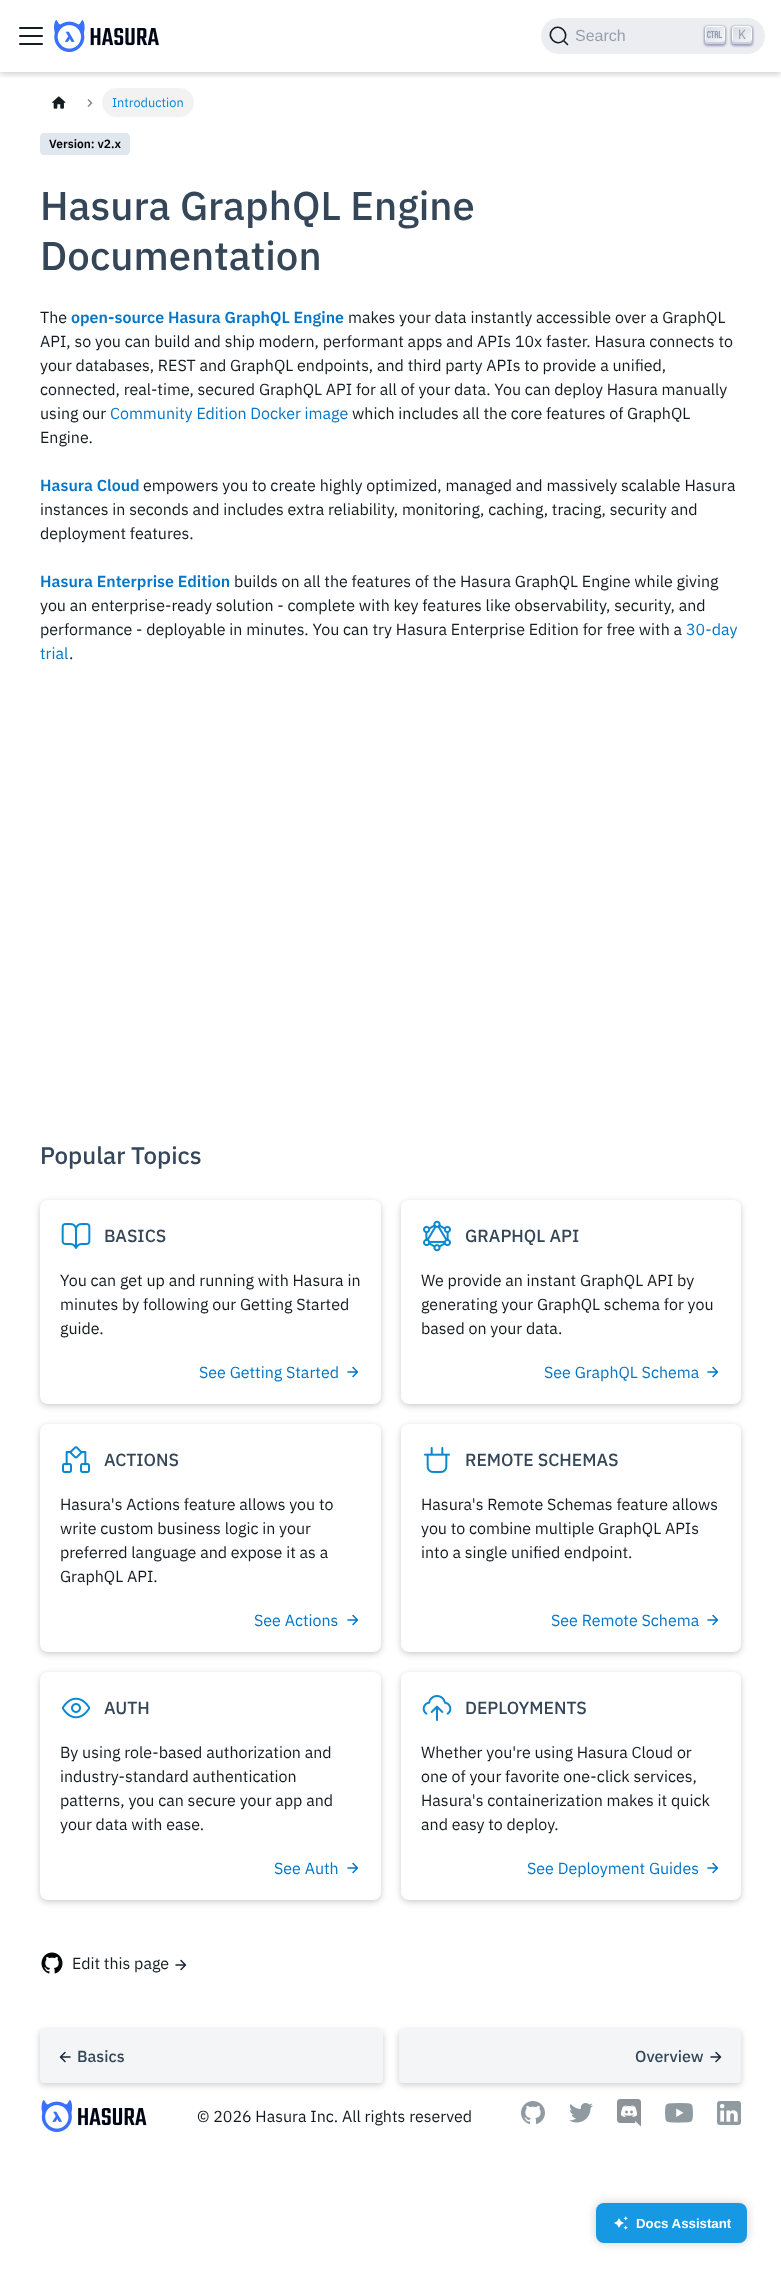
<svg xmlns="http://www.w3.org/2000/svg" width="781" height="2277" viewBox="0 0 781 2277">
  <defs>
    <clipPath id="clip1"><rect x="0" y="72" width="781" height="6"/></clipPath>
    <linearGradient id="g1" gradientUnits="userSpaceOnUse" x1="706" y1="25" x2="725" y2="45"><stop offset="0" stop-color="rgb(213,219,228)"/><stop offset="1" stop-color="rgb(248,248,248)"/></linearGradient>
    <linearGradient id="g2" gradientUnits="userSpaceOnUse" x1="733" y1="25" x2="752" y2="45"><stop offset="0" stop-color="rgb(213,219,228)"/><stop offset="1" stop-color="rgb(248,248,248)"/></linearGradient>
  </defs>
  <rect width="100%" height="100%" fill="rgb(255,255,255)"/>
  <g clip-path="url(#clip1)">
    <rect x="0" y="2" width="781" height="72" fill="rgba(0,0,0,0.2)" filter="blur(3px)"/>
  </g>
  <image x="19" y="27" width="24" height="18" href="pic1.png"/>
  <image x="54" y="20" width="105" height="32" href="pic2.png"/>
  <rect x="541" y="18" width="224" height="36" rx="18" fill="rgb(235,237,240)"/>
  <path d="M563.5 40.5L567.5 44.5L563.5 40.5C556.5 47.5 545.5 36.5 552.5 29.5C559.5 22.5 570.5 33.5 563.5 40.5Z" fill="none" stroke="rgb(20,28,34)" stroke-width="1.6" stroke-linecap="round" stroke-linejoin="round"/>
  <text x="575" y="41" font-family="Liberation Sans" font-size="16" fill="rgb(150,159,175)">Search</text>
  <rect x="704" y="26" width="22" height="20" rx="4" fill="rgba(30,35,90,0.4)" filter="blur(1px)"/>
  <rect x="705.5" y="26.5" width="19" height="17" rx="2.5" fill="url(#g1)" stroke="rgb(255,255,255)"/>
  <path d="M725 38.5C725 41 723.5 42 720 42H708C706 42 705 40.5 705 38.5V41C705 42.5 706.5 44 708 44H722C723.5 44 725 42.5 725 41Z" fill="rgb(205,205,230)"/>
  <image x="707" y="30" width="15" height="9" href="pic3.png"/>
  <rect x="731" y="26" width="22" height="20" rx="4" fill="rgba(30,35,90,0.4)" filter="blur(1px)"/>
  <rect x="732.5" y="26.5" width="19" height="17" rx="2.5" fill="url(#g2)" stroke="rgb(255,255,255)"/>
  <path d="M752 38.5C752 41 750.5 42 747 42H735C733 42 732 40.5 732 38.5V41C732 42.5 733.5 44 735 44H749C750.5 44 752 42.5 752 41Z" fill="rgb(205,205,230)"/>
  <text x="738" y="39" font-family="IBM Plex Mono" font-size="13.25" fill="rgb(150,159,175)">K</text>
  <image x="52" y="96" width="14" height="13" href="pic4.png"/>
  <image x="87" y="99" width="6" height="8" href="pic5.png"/>
  <rect x="102" y="88" width="92" height="29" rx="14.5" fill="rgb(242,242,242)"/>
  <text x="112" y="107" font-family="IBM Plex Sans" font-size="12.75" fill="rgb(11,137,208)">Introduction</text>
  <rect x="40.5" y="133.5" width="89" height="21" rx="3.5" fill="rgb(224,231,238)" stroke="rgb(224,231,238)"/>
  <text x="49" y="148" font-family="IBM Plex Sans" font-size="12" font-weight="600" fill="rgb(0,0,0)">Version: v2.x</text>
  <g font-family="IBM Plex Sans" font-size="40" font-weight="500" fill="rgb(52,70,88)">
    <text>
      <tspan x="40" y="220">Hasura GraphQL Engine</tspan>
      <tspan x="40" y="270">Documentation</tspan>
    </text>
  </g>
  <text x="40" y="323" font-family="IBM Plex Sans" font-size="16" fill="rgb(20,28,34)">The</text>
  <text x="71" y="323" font-family="IBM Plex Sans" font-size="16" font-weight="600" fill="rgb(6,118,200)">open-source Hasura GraphQL Engine</text>
  <g font-family="IBM Plex Sans" font-size="16" fill="rgb(20,28,34)">
    <text x="348" y="323">makes your data instantly accessible over a GraphQL</text>
    <text>
      <tspan x="40" y="347">API, so you can build and ship modern, performant apps and APIs 10x faster. Hasura connects to</tspan>
      <tspan x="40" y="371">your databases, REST and GraphQL endpoints, and third party APIs to provide a unified,</tspan>
      <tspan x="40" y="395">connected, real-time, secured GraphQL API for all of your data. You can deploy Hasura manually</tspan>
      <tspan x="40" y="419">using our</tspan>
    </text>
  </g>
  <text x="110" y="419" font-family="IBM Plex Sans" font-size="16" fill="rgb(6,118,200)">Community Edition Docker image</text>
  <g font-family="IBM Plex Sans" font-size="16" fill="rgb(20,28,34)">
    <text x="352" y="419">which includes all the core features of GraphQL</text>
    <text x="40" y="443">Engine.</text>
  </g>
  <text x="40" y="491" font-family="IBM Plex Sans" font-size="16" font-weight="600" fill="rgb(6,118,200)">Hasura Cloud</text>
  <g font-family="IBM Plex Sans" font-size="16" fill="rgb(20,28,34)">
    <text x="143" y="491">empowers you to create highly optimized, managed and massively scalable Hasura</text>
    <text>
      <tspan x="40" y="515">instances in seconds and includes extra reliability, monitoring, caching, tracing, security and</tspan>
      <tspan x="40" y="539">deployment features.</tspan>
    </text>
  </g>
  <text x="40" y="587" font-family="IBM Plex Sans" font-size="16" font-weight="600" fill="rgb(6,118,200)">Hasura Enterprise Edition</text>
  <g font-family="IBM Plex Sans" font-size="16" fill="rgb(20,28,34)">
    <text x="234" y="587">builds on all the features of the Hasura GraphQL Engine while giving</text>
    <text>
      <tspan x="40" y="611">you an enterprise-ready solution - complete with key features like observability, security, and</tspan>
      <tspan x="40" y="635">performance - deployable in minutes. You can try Hasura Enterprise Edition for free with a</tspan>
    </text>
  </g>
  <g font-family="IBM Plex Sans" font-size="16" fill="rgb(6,118,200)">
    <text x="686" y="635">30-day</text>
    <text x="40" y="659">trial</text>
  </g>
  <text x="69" y="659" font-family="IBM Plex Sans" font-size="16" fill="rgb(20,28,34)">.</text>
  <text x="40" y="1164" font-family="IBM Plex Sans" font-size="24" font-weight="500" fill="rgb(52,70,88)">Popular Topics</text>
  <rect x="40" y="1202" width="341" height="204" rx="8" fill="rgba(0,0,0,0.2)" filter="blur(3px)"/>
  <rect x="40" y="1200" width="341" height="204" rx="8" fill="rgb(255,255,255)"/>
  <image x="61" y="1223" width="30" height="26" href="pic6.png"/>
  <text x="104" y="1242" font-family="IBM Plex Sans" font-size="17.5" font-weight="500" fill="rgb(52,70,88)">BASICS</text>
  <g font-family="IBM Plex Sans" font-size="16" fill="rgb(20,28,34)">
    <text>
      <tspan x="60" y="1286">You can get up and running with Hasura in</tspan>
      <tspan x="60" y="1310">minutes by following our Getting Started</tspan>
      <tspan x="60" y="1334">guide.</tspan>
    </text>
  </g>
  <text x="199" y="1378" font-family="IBM Plex Sans" font-size="16" fill="rgb(6,118,200)">See Getting Started</text>
  <path d="M348 1372H357M353 1376.5L357.5 1372L353 1367.5" fill="none" stroke="rgb(6,118,200)" stroke-width="1.5" stroke-linecap="round" stroke-linejoin="round"/>
  <rect x="401" y="1202" width="340" height="204" rx="8" fill="rgba(0,0,0,0.2)" filter="blur(3px)"/>
  <rect x="401" y="1200" width="340" height="204" rx="8" fill="rgb(255,255,255)"/>
  <image x="423" y="1220" width="28" height="32" href="pic7.png"/>
  <text x="465" y="1242" font-family="IBM Plex Sans" font-size="17.5" font-weight="500" fill="rgb(52,70,88)">GRAPHQL API</text>
  <g font-family="IBM Plex Sans" font-size="16" fill="rgb(20,28,34)">
    <text>
      <tspan x="421" y="1286">We provide an instant GraphQL API by</tspan>
      <tspan x="421" y="1310">generating your GraphQL schema for you</tspan>
      <tspan x="421" y="1334">based on your data.</tspan>
    </text>
  </g>
  <text x="544" y="1378" font-family="IBM Plex Sans" font-size="16" fill="rgb(6,118,200)">See GraphQL Schema</text>
  <path d="M708 1372H717M713 1376.5L717.5 1372L713 1367.5" fill="none" stroke="rgb(6,118,200)" stroke-width="1.5" stroke-linecap="round" stroke-linejoin="round"/>
  <rect x="40" y="1426" width="341" height="228" rx="8" fill="rgba(0,0,0,0.2)" filter="blur(3px)"/>
  <rect x="40" y="1424" width="341" height="228" rx="8" fill="rgb(255,255,255)"/>
  <image x="62" y="1446" width="28" height="27" href="pic8.png"/>
  <text x="104" y="1466" font-family="IBM Plex Sans" font-size="17.5" font-weight="500" fill="rgb(52,70,88)">ACTIONS</text>
  <g font-family="IBM Plex Sans" font-size="16" fill="rgb(20,28,34)">
    <text>
      <tspan x="60" y="1510">Hasura's Actions feature allows you to</tspan>
      <tspan x="60" y="1534">write custom business logic in your</tspan>
      <tspan x="60" y="1558">preferred language and expose it as a</tspan>
      <tspan x="60" y="1582">GraphQL API.</tspan>
    </text>
  </g>
  <text x="254" y="1626" font-family="IBM Plex Sans" font-size="16" fill="rgb(6,118,200)">See Actions</text>
  <path d="M348 1620H357M353 1624.5L357.5 1620L353 1615.5" fill="none" stroke="rgb(6,118,200)" stroke-width="1.5" stroke-linecap="round" stroke-linejoin="round"/>
  <rect x="401" y="1426" width="340" height="228" rx="8" fill="rgba(0,0,0,0.2)" filter="blur(3px)"/>
  <rect x="401" y="1424" width="340" height="228" rx="8" fill="rgb(255,255,255)"/>
  <image x="424" y="1447" width="26" height="26" href="pic9.png"/>
  <text x="465" y="1466" font-family="IBM Plex Sans" font-size="17.5" font-weight="500" fill="rgb(52,70,88)">REMOTE SCHEMAS</text>
  <g font-family="IBM Plex Sans" font-size="16" fill="rgb(20,28,34)">
    <text>
      <tspan x="421" y="1510">Hasura's Remote Schemas feature allows</tspan>
      <tspan x="421" y="1534">you to combine multiple GraphQL APIs</tspan>
      <tspan x="421" y="1558">into a single unified endpoint.</tspan>
    </text>
  </g>
  <text x="551" y="1626" font-family="IBM Plex Sans" font-size="16" fill="rgb(6,118,200)">See Remote Schema</text>
  <path d="M708 1620H717M713 1624.5L717.5 1620L713 1615.5" fill="none" stroke="rgb(6,118,200)" stroke-width="1.5" stroke-linecap="round" stroke-linejoin="round"/>
  <rect x="40" y="1674" width="341" height="228" rx="8" fill="rgba(0,0,0,0.2)" filter="blur(3px)"/>
  <rect x="40" y="1672" width="341" height="228" rx="8" fill="rgb(255,255,255)"/>
  <image x="61" y="1697" width="30" height="22" href="pic10.png"/>
  <text x="104" y="1714" font-family="IBM Plex Sans" font-size="17.5" font-weight="500" fill="rgb(52,70,88)">AUTH</text>
  <g font-family="IBM Plex Sans" font-size="16" fill="rgb(20,28,34)">
    <text>
      <tspan x="60" y="1758">By using role-based authorization and</tspan>
      <tspan x="60" y="1782">industry-standard authentication</tspan>
      <tspan x="60" y="1806">patterns, you can secure your app and</tspan>
      <tspan x="60" y="1830">your data with ease.</tspan>
    </text>
  </g>
  <text x="274" y="1874" font-family="IBM Plex Sans" font-size="16" fill="rgb(6,118,200)">See Auth</text>
  <path d="M348 1868H357M353 1872.5L357.5 1868L353 1863.5" fill="none" stroke="rgb(6,118,200)" stroke-width="1.5" stroke-linecap="round" stroke-linejoin="round"/>
  <rect x="401" y="1674" width="340" height="228" rx="8" fill="rgba(0,0,0,0.2)" filter="blur(3px)"/>
  <rect x="401" y="1672" width="340" height="228" rx="8" fill="rgb(255,255,255)"/>
  <image x="422" y="1695" width="30" height="26" href="pic11.png"/>
  <text x="465" y="1714" font-family="IBM Plex Sans" font-size="17.5" font-weight="500" fill="rgb(52,70,88)">DEPLOYMENTS</text>
  <g font-family="IBM Plex Sans" font-size="16" fill="rgb(20,28,34)">
    <text>
      <tspan x="421" y="1758">Whether you're using Hasura Cloud or</tspan>
      <tspan x="421" y="1782">one of your favorite one-click services,</tspan>
      <tspan x="421" y="1806">Hasura's containerization makes it quick</tspan>
      <tspan x="421" y="1830">and easy to deploy.</tspan>
    </text>
  </g>
  <text x="527" y="1874" font-family="IBM Plex Sans" font-size="16" fill="rgb(6,118,200)">See Deployment Guides</text>
  <path d="M708 1868H717M713 1872.5L717.5 1868L713 1863.5" fill="none" stroke="rgb(6,118,200)" stroke-width="1.5" stroke-linecap="round" stroke-linejoin="round"/>
  <image x="41" y="1952" width="22" height="22" href="pic12.png"/>
  <text x="72" y="1969" font-family="IBM Plex Sans" font-size="16" fill="rgb(20,28,34)">Edit this page</text>
  <path d="M176 1965H185M181 1969.5L185.5 1965L181 1960.5" fill="none" stroke="rgb(27,39,56)" stroke-width="1.5" stroke-linecap="round" stroke-linejoin="round"/>
  <rect x="40" y="2031" width="343" height="54" rx="4" fill="rgba(0,0,0,0.2)" filter="blur(3px)"/>
  <rect x="40" y="2029" width="343" height="54" rx="4" fill="rgb(243,245,247)"/>
  <path d="M70 2057H61M65 2052.5L60.5 2057L65 2061.5" fill="none" stroke="rgb(27,39,56)" stroke-width="1.5" stroke-linecap="round" stroke-linejoin="round"/>
  <text x="77" y="2062" font-family="IBM Plex Sans" font-size="16" font-weight="500" fill="rgb(52,70,88)">Basics</text>
  <rect x="399" y="2031" width="342" height="54" rx="4" fill="rgba(0,0,0,0.2)" filter="blur(3px)"/>
  <rect x="399" y="2029" width="342" height="54" rx="4" fill="rgb(243,245,247)"/>
  <text x="635" y="2062" font-family="IBM Plex Sans" font-size="16" font-weight="500" fill="rgb(52,70,88)">Overview</text>
  <path d="M711 2057H720M716 2061.5L720.5 2057L716 2052.5" fill="none" stroke="rgb(27,39,56)" stroke-width="1.5" stroke-linecap="round" stroke-linejoin="round"/>
  <image x="41" y="2100" width="106" height="32" href="pic13.png"/>
  <text x="197" y="2122" font-family="IBM Plex Sans" font-size="16" fill="rgb(20,28,34)">© 2026 Hasura Inc. All rights reserved</text>
  <image x="521" y="2101" width="24" height="23" href="pic14.png"/>
  <image x="569" y="2103" width="24" height="20" href="pic15.png"/>
  <image x="617" y="2099" width="24" height="28" href="pic16.png"/>
  <image x="665" y="2103" width="28" height="20" href="pic17.png"/>
  <image x="717" y="2101" width="24" height="24" href="pic18.png"/>
  <rect x="596" y="2203" width="151" height="40" rx="8" fill="rgba(0,0,0,0.2)" filter="blur(5px)"/>
  <rect x="596" y="2203" width="151" height="40" rx="8" fill="rgb(22,153,226)"/>
  <image x="614" y="2216" width="14" height="14" href="pic19.png"/>
  <text x="636" y="2228" font-family="Liberation Sans" font-size="13.25" font-weight="bold" fill="rgb(255,255,255)">Docs Assistant</text>
</svg>
